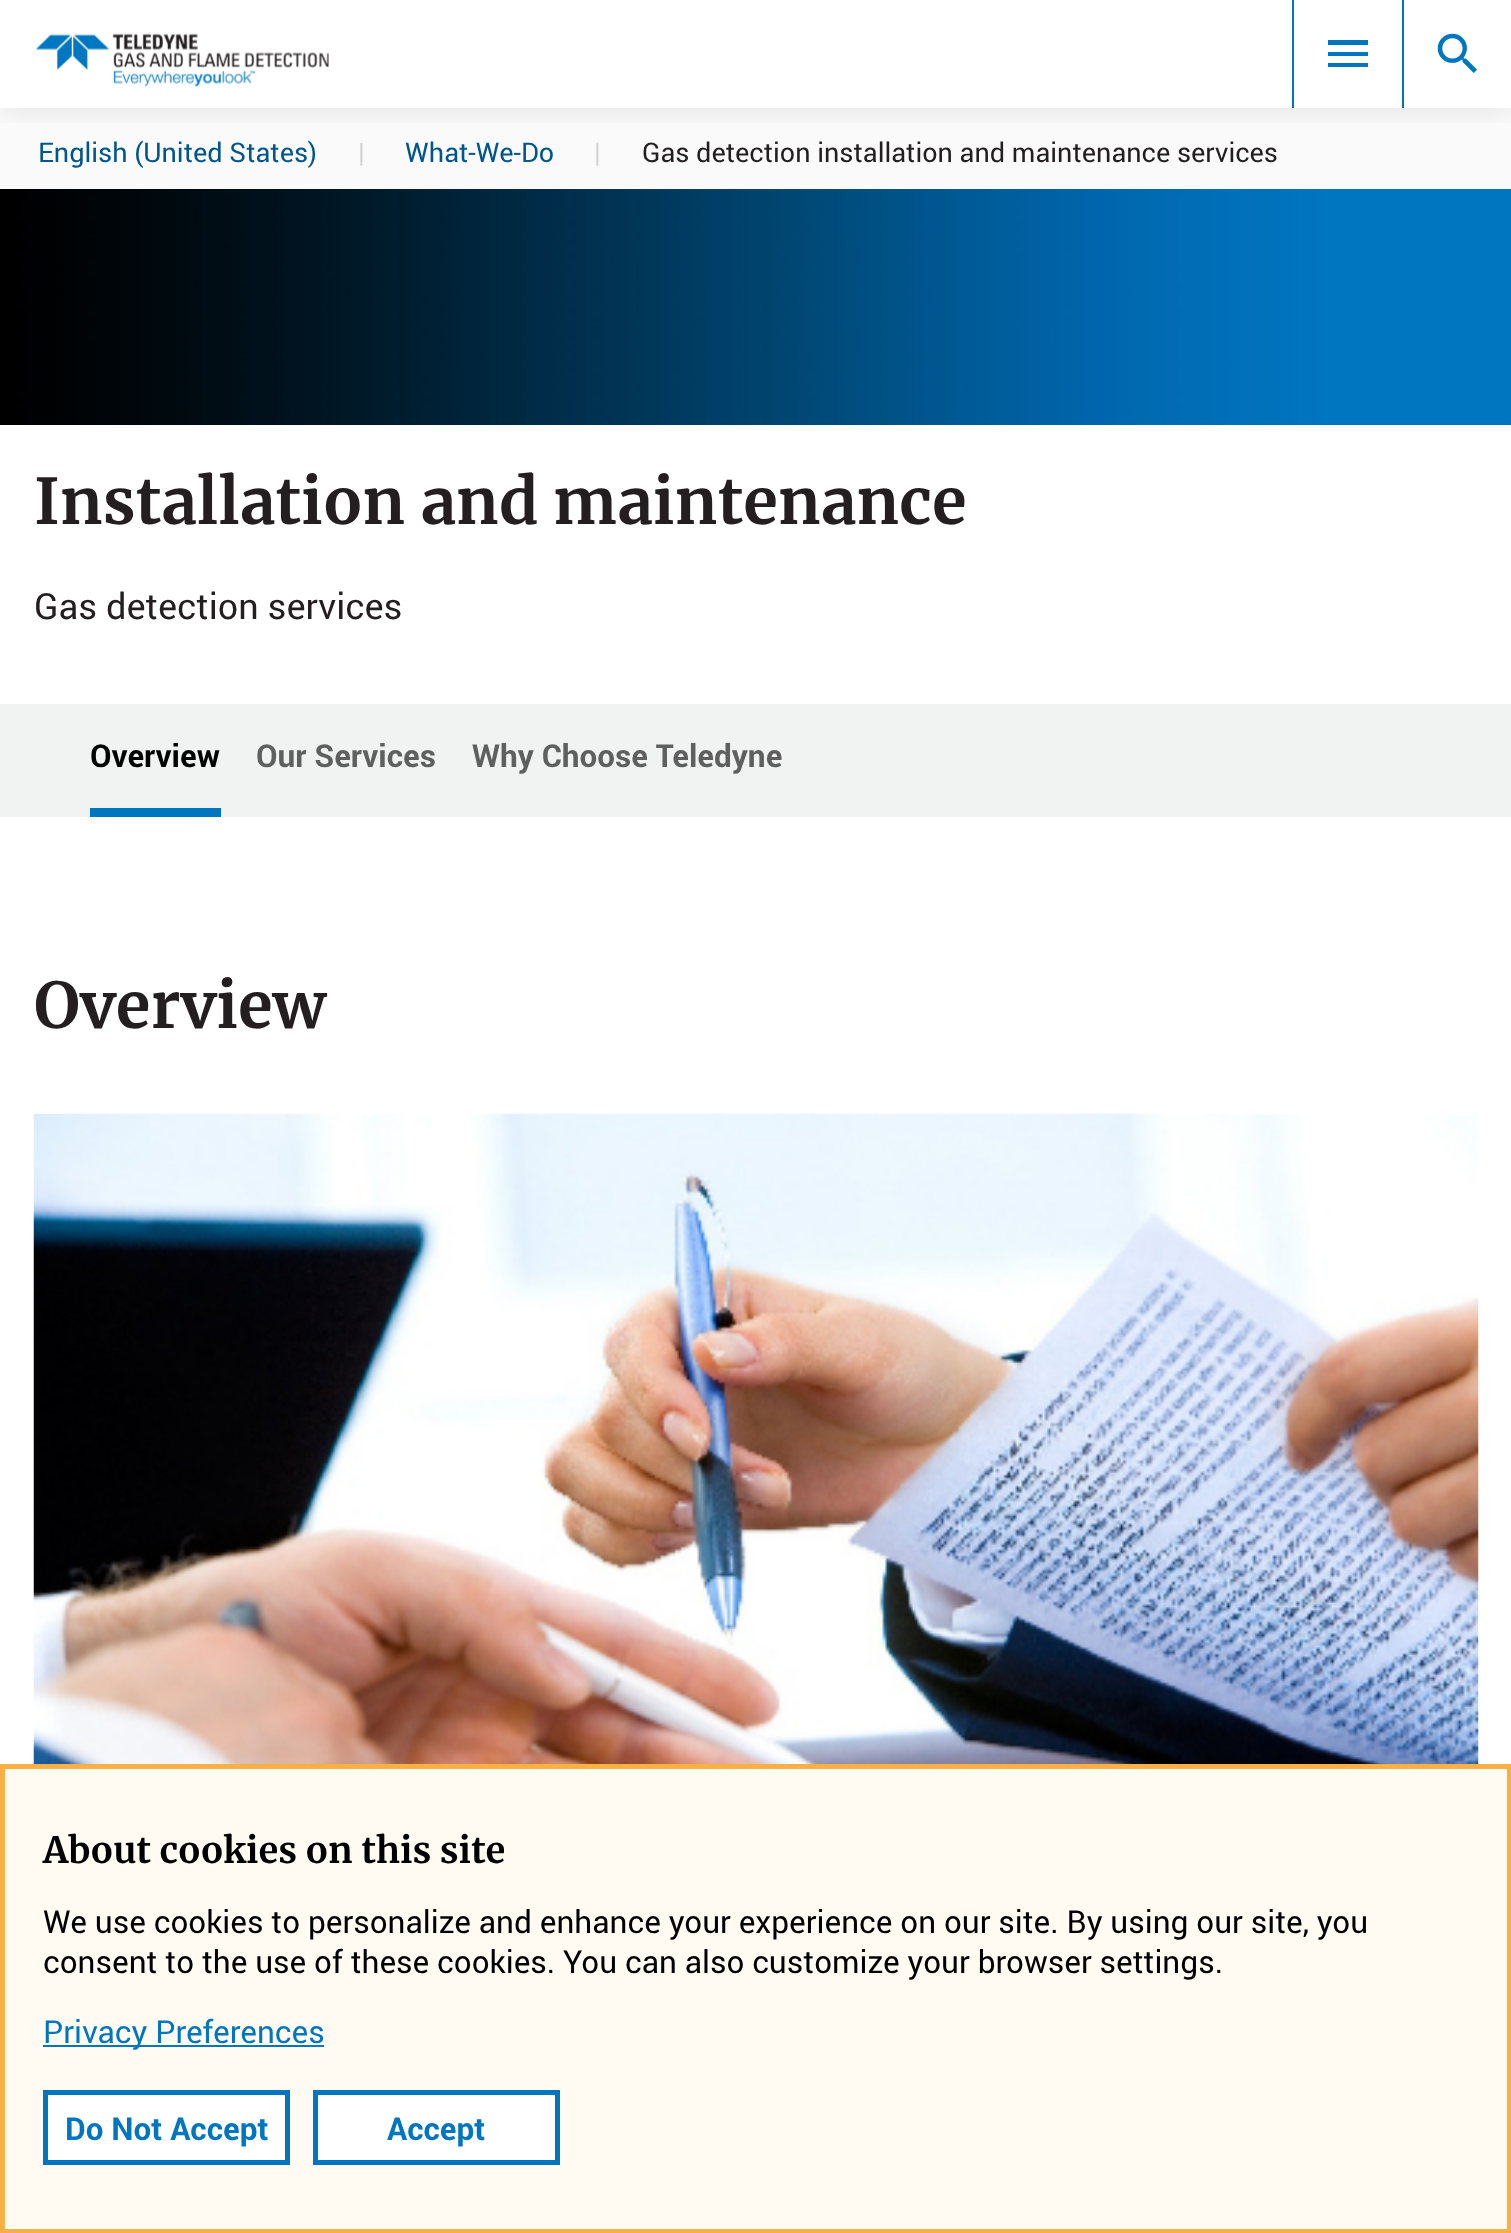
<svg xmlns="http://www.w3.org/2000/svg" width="1511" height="2233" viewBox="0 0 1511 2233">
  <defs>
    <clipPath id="clip1"><rect x="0" y="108" width="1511" height="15"/></clipPath>
  </defs>
  <rect width="100%" height="100%" fill="rgb(255,255,255)"/>
  <rect x="0" y="108" width="1511" height="81" fill="rgb(250,250,250)"/>
  <g clip-path="url(#clip1)">
    <rect x="0" y="0" width="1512" height="108" fill="rgba(0,0,0,0.1)" filter="blur(18px)"/>
  </g>
  <image x="36" y="33" width="293" height="54" href="pic1.png"/>
  <rect x="1402" y="0" width="2" height="108" fill="rgb(0,118,192)"/>
  <rect x="1292" y="0" width="2" height="108" fill="rgb(0,118,192)"/>
  <path d="M1328 40H1368V45H1328ZM1328 56V52H1368V56ZM1328 67V63H1368V67Z" fill="rgb(0,118,192)"/>
  <image x="1437" y="33" width="40" height="40" href="pic2.png"/>
  <text x="38" y="162" font-family="Roboto" font-size="27" fill="rgb(0,86,140)">English (United States)</text>
  <text x="358" y="162" font-family="Roboto" font-size="27" fill="rgb(209,211,212)">|</text>
  <text x="405" y="162" font-family="Roboto" font-size="27" fill="rgb(0,86,140)">What-We-Do</text>
  <text x="594" y="162" font-family="Roboto" font-size="27" fill="rgb(209,211,212)">|</text>
  <text x="642" y="162" font-family="Roboto" font-size="27" fill="rgb(35,31,32)">Gas detection installation and maintenance services</text>
  <image x="0" y="189" width="1511" height="236" href="pic3.png"/>
  <text x="34" y="524" font-family="Merriweather" font-size="63" font-weight="bold" fill="rgb(35,31,32)">Installation and maintenance</text>
  <text x="34" y="619" font-family="Roboto" font-size="36" fill="rgb(35,31,32)">Gas detection services</text>
  <rect x="0" y="704" width="1511" height="113" fill="rgb(241,242,242)"/>
  <rect x="90" y="808" width="131" height="9" fill="rgb(0,118,192)"/>
  <text x="90" y="767" font-family="Roboto" font-size="31.5" font-weight="bold" fill="rgb(0,0,0)">Overview</text>
  <g font-family="Roboto" font-size="31.5" font-weight="bold" fill="rgb(95,95,95)">
    <text x="256" y="767">Our Services</text>
    <text x="472" y="767">Why Choose Teledyne</text>
  </g>
  <text x="34" y="1028" font-family="Merriweather" font-size="63" font-weight="bold" fill="rgb(35,31,32)">Overview</text>
  <image x="33" y="1113" width="1446" height="651" href="pic4.png"/>
  <rect x="2.5" y="1766.5" width="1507" height="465" fill="rgb(255,250,242)" stroke="rgb(248,175,67)" stroke-width="5"/>
  <text x="43" y="1863" font-family="Merriweather" font-size="36" font-weight="bold" fill="rgb(0,0,0)">About cookies on this site</text>
  <g font-family="Roboto" font-size="31.5" fill="rgb(0,0,0)">
    <text>
      <tspan x="43" y="1933">We use cookies to personalize and enhance your experience on our site. By using our site, you</tspan>
      <tspan x="43" y="1973">consent to the use of these cookies. You can also customize your browser settings.</tspan>
    </text>
  </g>
  <rect x="43" y="2045" width="281" height="2" fill="rgb(0,118,192)"/>
  <text x="43" y="2043" font-family="Roboto" font-size="31.5" fill="rgb(0,118,192)">Privacy Preferences</text>
  <rect x="45.5" y="2092.5" width="242" height="70" fill="rgb(255,255,255)" stroke="rgb(0,118,192)" stroke-width="5"/>
  <text x="65" y="2140" font-family="Roboto" font-size="31.5" font-weight="bold" fill="rgb(0,118,192)">Do Not Accept</text>
  <rect x="315.5" y="2092.5" width="242" height="70" fill="rgb(255,255,255)" stroke="rgb(0,118,192)" stroke-width="5"/>
  <text x="387" y="2140" font-family="Roboto" font-size="31.5" font-weight="bold" fill="rgb(0,118,192)">Accept</text>
</svg>
